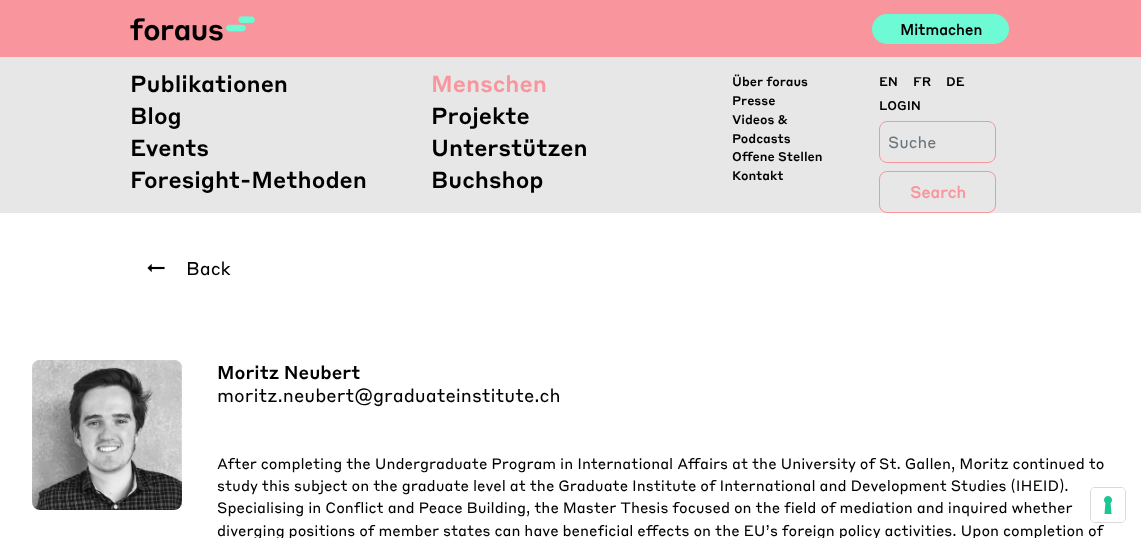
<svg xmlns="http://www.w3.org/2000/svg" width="1141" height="538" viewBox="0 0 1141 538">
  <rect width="100%" height="100%" fill="rgb(255,255,255)"/>
  <rect x="0" y="0" width="1141" height="57" fill="rgb(249,149,157)"/>
  <image x="130" y="16" width="125" height="25" href="pic1.png"/>
  <rect x="872" y="14" width="137" height="30" rx="15" fill="rgb(110,250,213)"/>
  <text x="900" y="35" font-family="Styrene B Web" font-size="14.75" font-weight="bold" fill="rgb(0,0,0)">Mitmachen</text>
  <rect x="0" y="57" width="1141" height="156" fill="rgb(231,231,231)"/>
  <text x="130" y="92" font-family="Styrene B Web" font-size="22.75" font-weight="500" fill="rgb(0,0,0)">Publikationen</text>
  <text x="431" y="92" font-family="Styrene B Web" font-size="22.75" font-weight="500" fill="rgb(249,149,157)">Menschen</text>
  <g font-family="Styrene B Web" font-size="22.75" font-weight="500" fill="rgb(0,0,0)">
    <text x="130" y="124">Blog</text>
    <text x="431" y="124">Projekte</text>
    <text x="130" y="156">Events</text>
    <text x="431" y="156">Unterstützen</text>
    <text x="130" y="188">Foresight-Methoden</text>
    <text x="431" y="188">Buchshop</text>
  </g>
  <g font-family="Styrene B Web" font-size="12.5" font-weight="500" fill="rgb(0,0,0)">
    <text>
      <tspan x="732" y="86">Über foraus</tspan>
      <tspan x="732" y="105">Presse</tspan>
      <tspan x="732" y="124">Videos &amp;</tspan>
      <tspan x="732" y="143">Podcasts</tspan>
      <tspan x="732" y="161">Offene Stellen</tspan>
      <tspan x="732" y="180">Kontakt</tspan>
    </text>
    <text x="879" y="86">EN</text>
    <text x="913" y="86">FR</text>
    <text x="946" y="86">DE</text>
    <text x="879" y="110">LOGIN</text>
  </g>
  <rect x="879.5" y="121.5" width="116" height="41" rx="7.5" fill="none" stroke="rgb(249,149,157)"/>
  <text x="888" y="148" font-family="Styrene B Web" font-size="16" fill="rgb(108,117,125)">Suche</text>
  <rect x="879.5" y="171.5" width="116" height="41" rx="7.5" fill="none" stroke="rgb(249,149,157)"/>
  <text x="910" y="198" font-family="Styrene B Web" font-size="16" font-weight="bold" fill="rgb(249,149,157)">Search</text>
  <image x="147" y="263" width="18" height="10" href="pic2.png"/>
  <text x="186" y="275" font-family="Styrene B Web" font-size="18.25" fill="rgb(0,0,0)">Back</text>
  <rect x="32" y="360" width="150" height="150" rx="8" fill="rgb(231,231,231)"/>
  <image x="32" y="360" width="150" height="150" href="pic3.png"/>
  <text x="217" y="379" font-family="Styrene B Web" font-size="18.25" font-weight="500" fill="rgb(0,0,0)">Moritz Neubert</text>
  <text x="217" y="402" font-family="Styrene B Web" font-size="18.25" fill="rgb(0,0,0)">moritz.neubert@graduateinstitute.ch</text>
  <g font-family="Styrene B Web" font-size="14.83" fill="rgb(0,0,0)">
    <text>
      <tspan x="217" y="469">After completing the Undergraduate Program in International Affairs at the University of St. Gallen, Moritz continued to</tspan>
      <tspan x="217" y="491">study this subject on the graduate level at the Graduate Institute of International and Development Studies (IHEID).</tspan>
      <tspan x="217" y="513">Specialising in Conflict and Peace Building, the Master Thesis focused on the field of mediation and inquired whether</tspan>
      <tspan x="217" y="536">diverging positions of member states can have beneficial effects on the EU’s foreign policy activities. Upon completion of</tspan>
    </text>
  </g>
  <rect x="1090.5" y="487.5" width="35" height="35" rx="4.5" fill="none" stroke="rgb(217,217,217)"/>
  <rect x="1091" y="488" width="34" height="34" rx="4" fill="rgb(255,255,255)"/>
  <image x="1104" y="496" width="8" height="18" href="pic4.png"/>
</svg>
